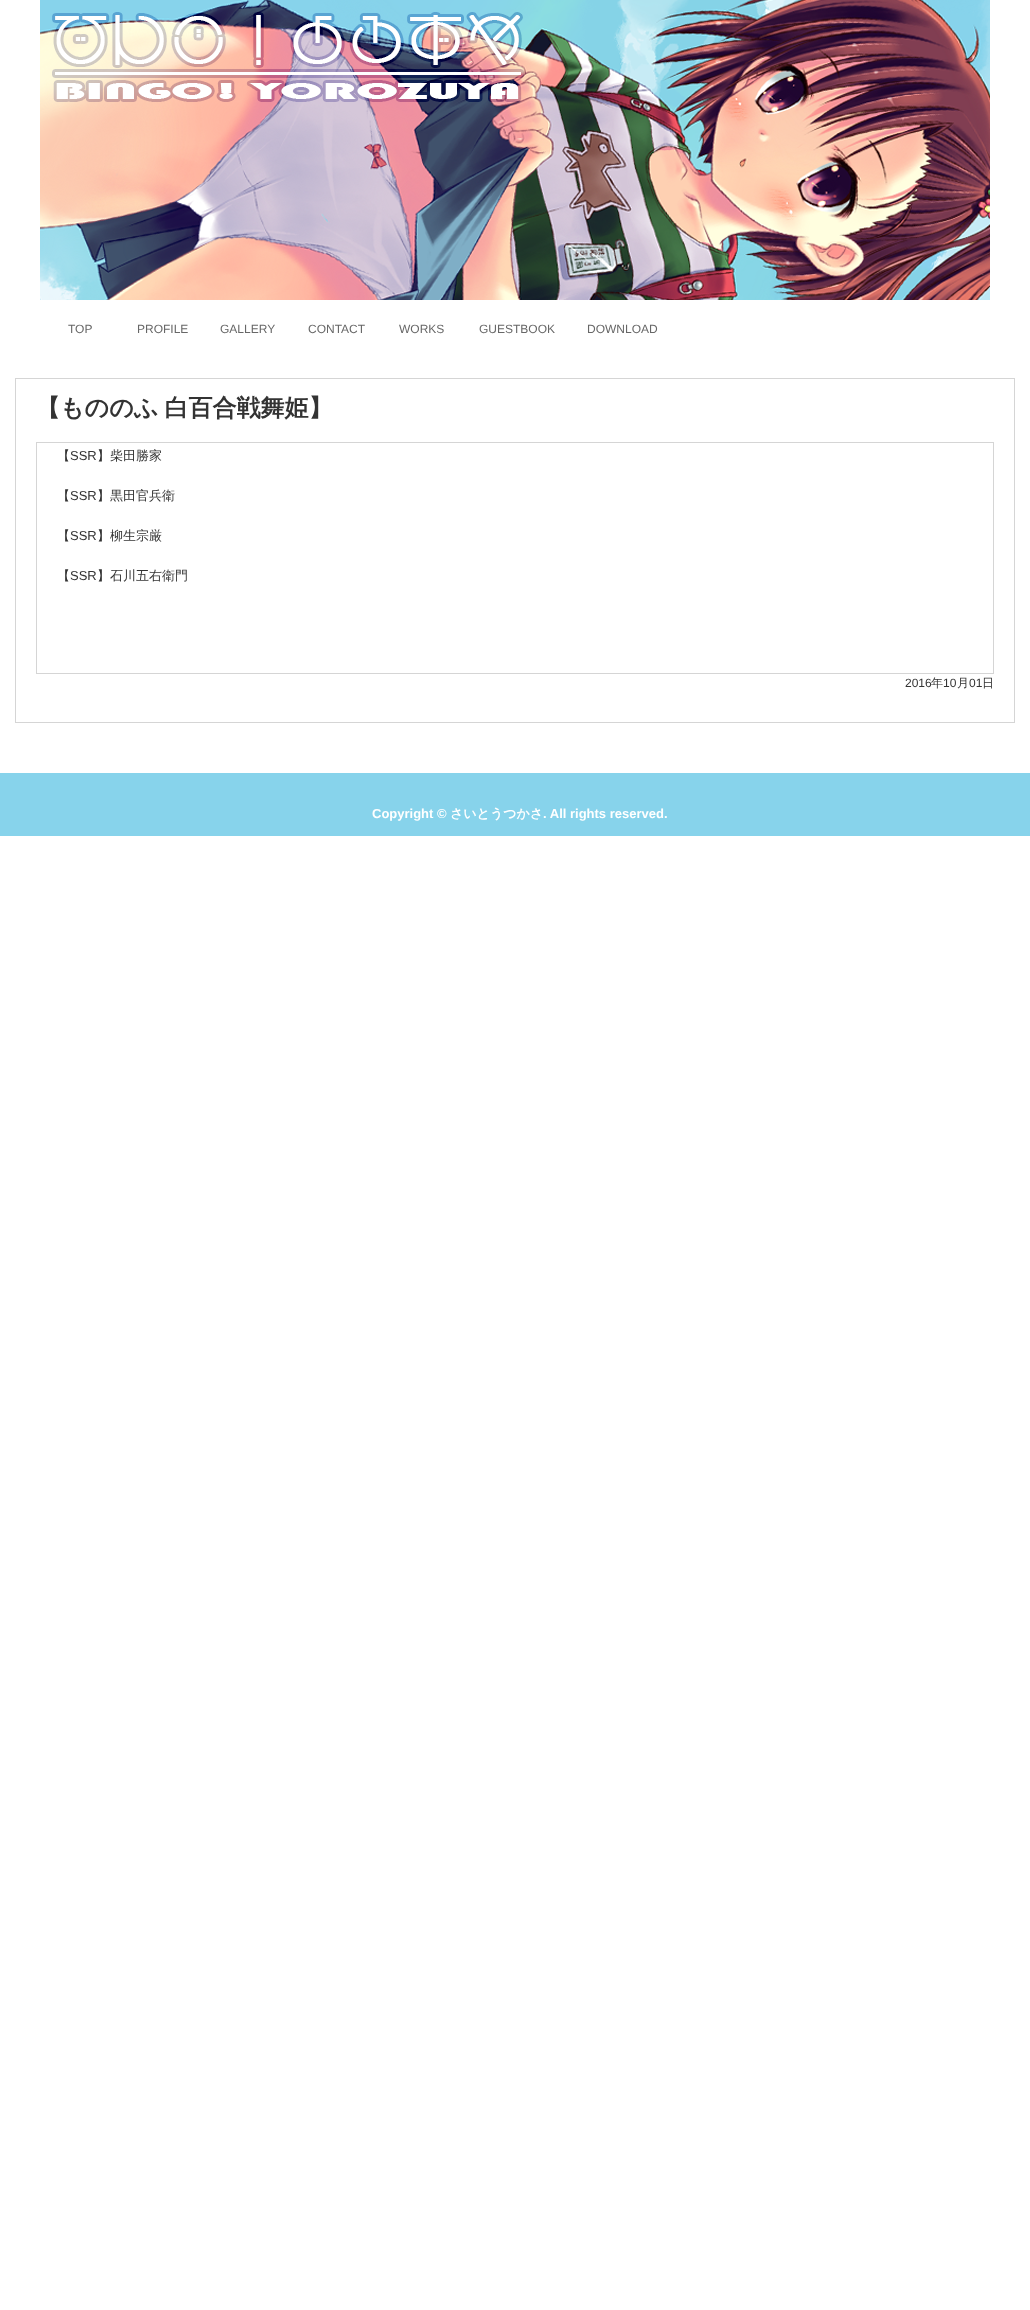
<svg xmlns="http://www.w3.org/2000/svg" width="1030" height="2310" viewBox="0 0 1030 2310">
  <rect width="100%" height="100%" fill="rgb(255,255,255)"/>
  <image x="40" y="0" width="950" height="300" href="pic1.png"/>
  <g font-family="Liberation Sans" font-size="12" fill="rgb(103,103,103)">
    <text x="68" y="333">TOP</text>
    <text x="137" y="333">PROFILE</text>
    <text x="220" y="333">GALLERY</text>
    <text x="308" y="333">CONTACT</text>
    <text x="399" y="333">WORKS</text>
    <text x="479" y="333">GUESTBOOK</text>
    <text x="587" y="333">DOWNLOAD</text>
  </g>
  <rect x="15.5" y="378.5" width="999" height="344" fill="none" stroke="rgb(213,213,213)"/>
  <text x="36" y="416" word-spacing="-1" font-family="WenQuanYi Zen Hei" font-size="24" font-weight="bold" fill="rgb(51,51,51)">【もののふ 白百合戦舞姫】</text>
  <rect x="36.5" y="442.5" width="957" height="231" fill="none" stroke="rgb(213,213,213)"/>
  <text x="57" y="460" font-family="WenQuanYi Zen Hei" font-size="13" font-weight="500" fill="rgb(51,51,51)">【</text>
  <text x="70" y="460" font-family="Liberation Sans" font-size="13" fill="rgb(51,51,51)">SSR</text>
  <g font-family="WenQuanYi Zen Hei" font-size="13" font-weight="500" fill="rgb(51,51,51)">
    <text x="97" y="460">】柴田勝家</text>
    <text x="57" y="500">【</text>
  </g>
  <text x="70" y="500" font-family="Liberation Sans" font-size="13" fill="rgb(51,51,51)">SSR</text>
  <g font-family="WenQuanYi Zen Hei" font-size="13" font-weight="500" fill="rgb(51,51,51)">
    <text x="97" y="500">】黒田官兵衛</text>
    <text x="57" y="540">【</text>
  </g>
  <text x="70" y="540" font-family="Liberation Sans" font-size="13" fill="rgb(51,51,51)">SSR</text>
  <g font-family="WenQuanYi Zen Hei" font-size="13" font-weight="500" fill="rgb(51,51,51)">
    <text x="97" y="540">】柳生宗厳</text>
    <text x="57" y="580">【</text>
  </g>
  <text x="70" y="580" font-family="Liberation Sans" font-size="13" fill="rgb(51,51,51)">SSR</text>
  <text x="97" y="580" font-family="WenQuanYi Zen Hei" font-size="13" font-weight="500" fill="rgb(51,51,51)">】石川五右衛門</text>
  <text x="905" y="687" font-family="Liberation Sans" font-size="12" fill="rgb(51,51,51)">2016</text>
  <text x="931" y="687" font-family="WenQuanYi Zen Hei" font-size="12" font-weight="500" fill="rgb(51,51,51)">年</text>
  <text x="943" y="687" font-family="Liberation Sans" font-size="12" fill="rgb(51,51,51)">10</text>
  <text x="957" y="687" font-family="WenQuanYi Zen Hei" font-size="12" font-weight="500" fill="rgb(51,51,51)">月</text>
  <text x="969" y="687" font-family="Liberation Sans" font-size="12" fill="rgb(51,51,51)">01</text>
  <text x="982" y="687" font-family="WenQuanYi Zen Hei" font-size="12" font-weight="500" fill="rgb(51,51,51)">日</text>
  <rect x="0" y="773" width="1030" height="63" fill="rgb(135,211,235)"/>
  <text x="372" y="818" font-family="Liberation Sans" font-size="13" font-weight="bold" fill="rgb(255,255,255)">Copyright ©</text>
  <text x="450" y="818" font-family="WenQuanYi Zen Hei" font-size="13" font-weight="bold" fill="rgb(255,255,255)">さいとうつかさ</text>
  <text x="543" y="818" font-family="Liberation Sans" font-size="13" font-weight="bold" fill="rgb(255,255,255)">. All rights reserved.</text>
</svg>
